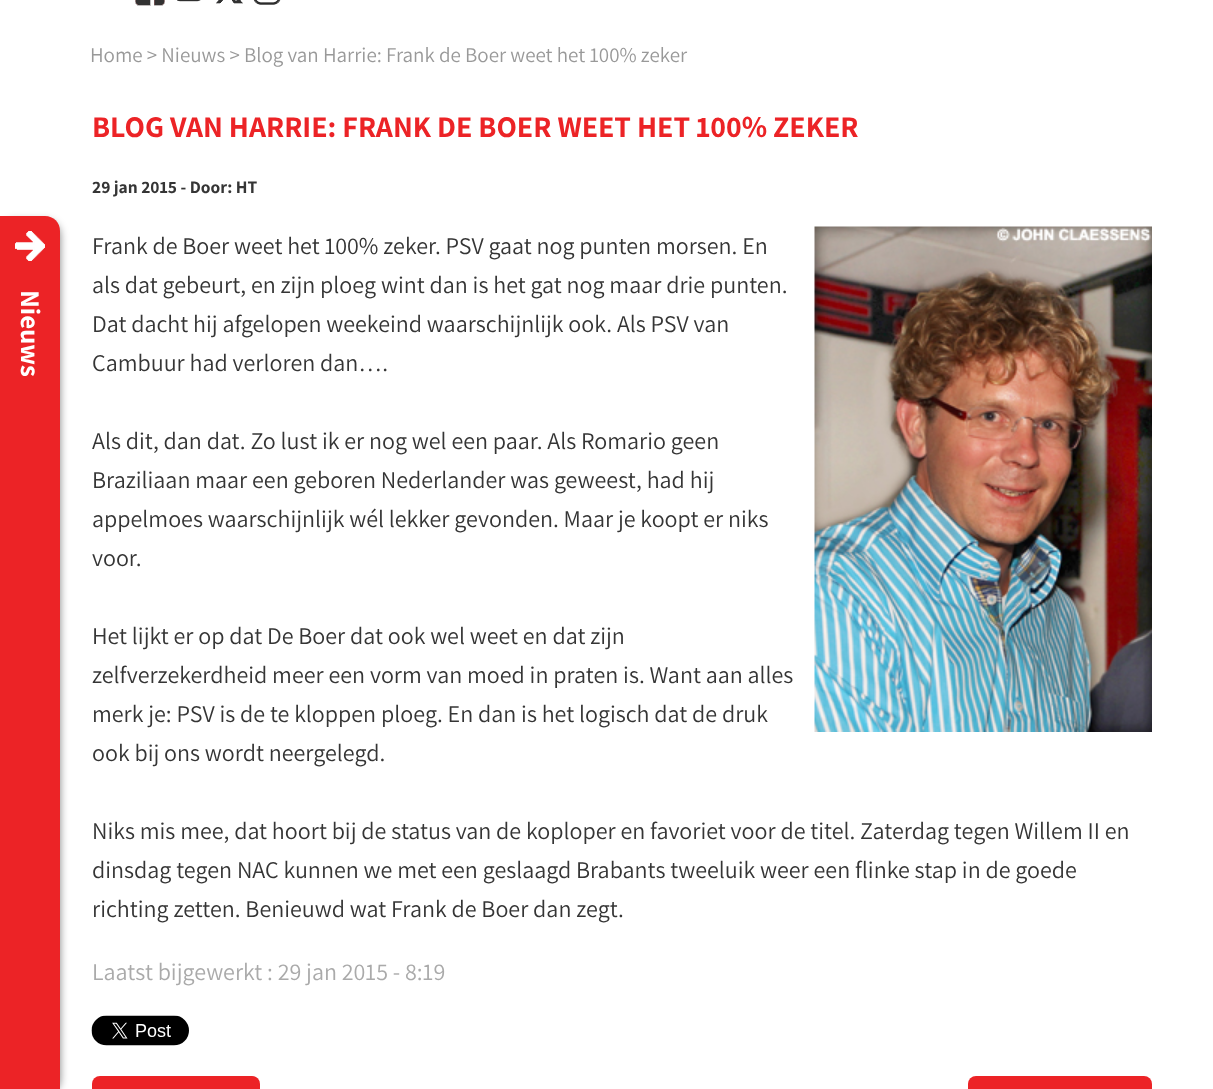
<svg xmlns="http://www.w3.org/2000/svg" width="1213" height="1089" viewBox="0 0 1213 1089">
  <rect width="100%" height="100%" fill="rgb(255,255,255)"/>
  <image x="135" y="0" width="30" height="6" href="pic1.png"/>
  <image x="177" y="0" width="24" height="2" href="pic2.png"/>
  <image x="216" y="0" width="27" height="4" href="pic3.png"/>
  <image x="253" y="0" width="28" height="5" href="pic4.png"/>
  <text x="90" y="62" font-family="Assistant" font-size="21" fill="rgb(153,153,153)">Home &gt; Nieuws &gt; Blog van Harrie: Frank de Boer weet het 100% zeker</text>
  <rect x="0" y="221" width="60" height="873" rx="15" fill="rgba(0,0,0,0.49)" filter="blur(4.5px)"/>
  <path d="M0 216H45C53.5 216 60 222.5 60 231V1089H0Z" fill="rgb(236,35,38)"/>
  <image x="15" y="231" width="30" height="30" href="pic5.png"/>
  <text x="21" y="290" transform="rotate(90 21 290)" font-family="Assistant" font-size="27" font-weight="bold" fill="rgb(255,255,255)">Nieuws</text>
  <text x="92" y="137" font-family="Assistant" font-size="30" font-weight="bold" fill="rgb(236,35,38)">BLOG VAN HARRIE: FRANK DE BOER WEET HET 100% ZEKER</text>
  <text x="92" y="193" font-family="Assistant" font-size="17.5" font-weight="bold" fill="rgb(53,53,53)">29 jan 2015 - Door: HT</text>
  <image x="814" y="226" width="338" height="506" href="pic6.png"/>
  <g font-family="Assistant" font-size="24" fill="rgb(53,53,53)">
    <text>
      <tspan x="92" y="254">Frank de Boer weet het 100% zeker. PSV gaat nog punten morsen. En</tspan>
      <tspan x="92" y="293">als dat gebeurt, en zijn ploeg wint dan is het gat nog maar drie punten.</tspan>
      <tspan x="92" y="332">Dat dacht hij afgelopen weekeind waarschijnlijk ook. Als PSV van</tspan>
      <tspan x="92" y="371">Cambuur had verloren dan….</tspan>
    </text>
    <text>
      <tspan x="92" y="449">Als dit, dan dat. Zo lust ik er nog wel een paar. Als Romario geen</tspan>
      <tspan x="92" y="488">Braziliaan maar een geboren Nederlander was geweest, had hij</tspan>
      <tspan x="92" y="527">appelmoes waarschijnlijk wél lekker gevonden. Maar je koopt er niks</tspan>
      <tspan x="92" y="566">voor.</tspan>
    </text>
    <text>
      <tspan x="92" y="644">Het lijkt er op dat De Boer dat ook wel weet en dat zijn</tspan>
      <tspan x="92" y="683">zelfverzekerdheid meer een vorm van moed in praten is. Want aan alles</tspan>
      <tspan x="92" y="722">merk je: PSV is de te kloppen ploeg. En dan is het logisch dat de druk</tspan>
      <tspan x="92" y="761">ook bij ons wordt neergelegd.</tspan>
    </text>
    <text>
      <tspan x="92" y="839">Niks mis mee, dat hoort bij de status van de koploper en favoriet voor de titel. Zaterdag tegen Willem II en</tspan>
      <tspan x="92" y="878">dinsdag tegen NAC kunnen we met een geslaagd Brabants tweeluik weer een flinke stap in de goede</tspan>
      <tspan x="92" y="917">richting zetten. Benieuwd wat Frank de Boer dan zegt.</tspan>
    </text>
  </g>
  <text x="92" y="980" font-family="Assistant" font-size="24" fill="rgb(170,170,170)">Laatst bijgewerkt : 29 jan 2015 - 8:19</text>
  <image x="91" y="1015" width="98" height="31" href="pic7.png"/>
  <rect x="92" y="1076" width="168" height="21" rx="8" fill="rgb(236,35,38)"/>
  <rect x="968" y="1076" width="184" height="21" rx="8" fill="rgb(236,35,38)"/>
</svg>
